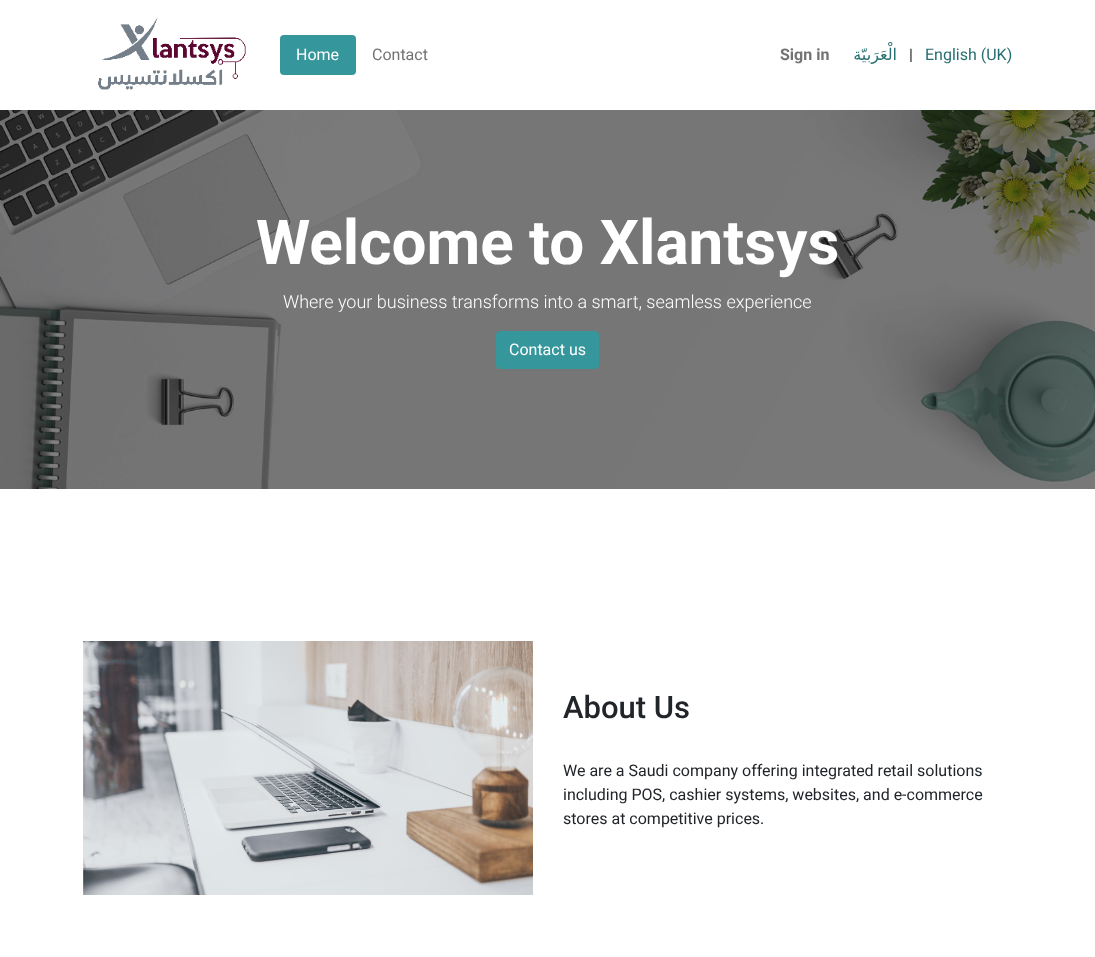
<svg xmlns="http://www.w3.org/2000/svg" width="1095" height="957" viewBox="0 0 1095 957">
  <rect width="100%" height="100%" fill="rgb(255,255,255)"/>
  <image x="98" y="17" width="148" height="73" href="pic1.png"/>
  <rect x="280" y="35" width="76" height="40" rx="4" fill="rgb(53,151,156)"/>
  <text x="296" y="60" font-family="Roboto" font-size="16" fill="rgb(255,255,255)">Home</text>
  <text x="372" y="60" font-family="Roboto" font-size="16" fill="rgb(115,115,115)">Contact</text>
  <text x="780" y="60" font-family="Roboto" font-size="16" font-weight="bold" fill="rgb(115,115,115)">Sign in</text>
  <text x="897" y="60" font-family="DejaVu Sans" font-size="16" direction="rtl" fill="rgb(39,110,114)">الْعَرَبيّة</text>
  <text x="909" y="60" font-family="Roboto" font-size="16" fill="rgb(33,37,41)">|</text>
  <text x="925" y="60" font-family="Roboto" font-size="16" fill="rgb(39,110,114)">English (UK)</text>
  <image x="0" y="110" width="1095" height="379" href="pic2.png"/>
  <text x="256" y="264" font-family="Roboto" font-size="62" font-weight="bold" fill="rgb(255,255,255)">Welcome to Xlantsys</text>
  <text x="283" y="308" font-family="Roboto" font-size="18" font-weight="300" fill="rgb(255,255,255)">Where your business transforms into a smart, seamless experience</text>
  <rect x="496.5" y="331.5" width="102" height="37" rx="3.5" fill="rgb(53,151,156)" stroke="rgb(53,151,156)"/>
  <text x="509" y="355" font-family="Roboto" font-size="16" fill="rgb(255,255,255)">Contact us</text>
  <image x="83" y="641" width="450" height="254" href="pic3.png"/>
  <text x="563" y="718" font-family="Roboto" font-size="31" font-weight="500" fill="rgb(33,37,41)">About Us</text>
  <g font-family="Roboto" font-size="16" fill="rgb(33,37,41)">
    <text>
      <tspan x="563" y="776">We are a Saudi company offering integrated retail solutions</tspan>
      <tspan x="563" y="800">including POS, cashier systems, websites, and e-commerce</tspan>
      <tspan x="563" y="824">stores at competitive prices.</tspan>
    </text>
  </g>
</svg>
